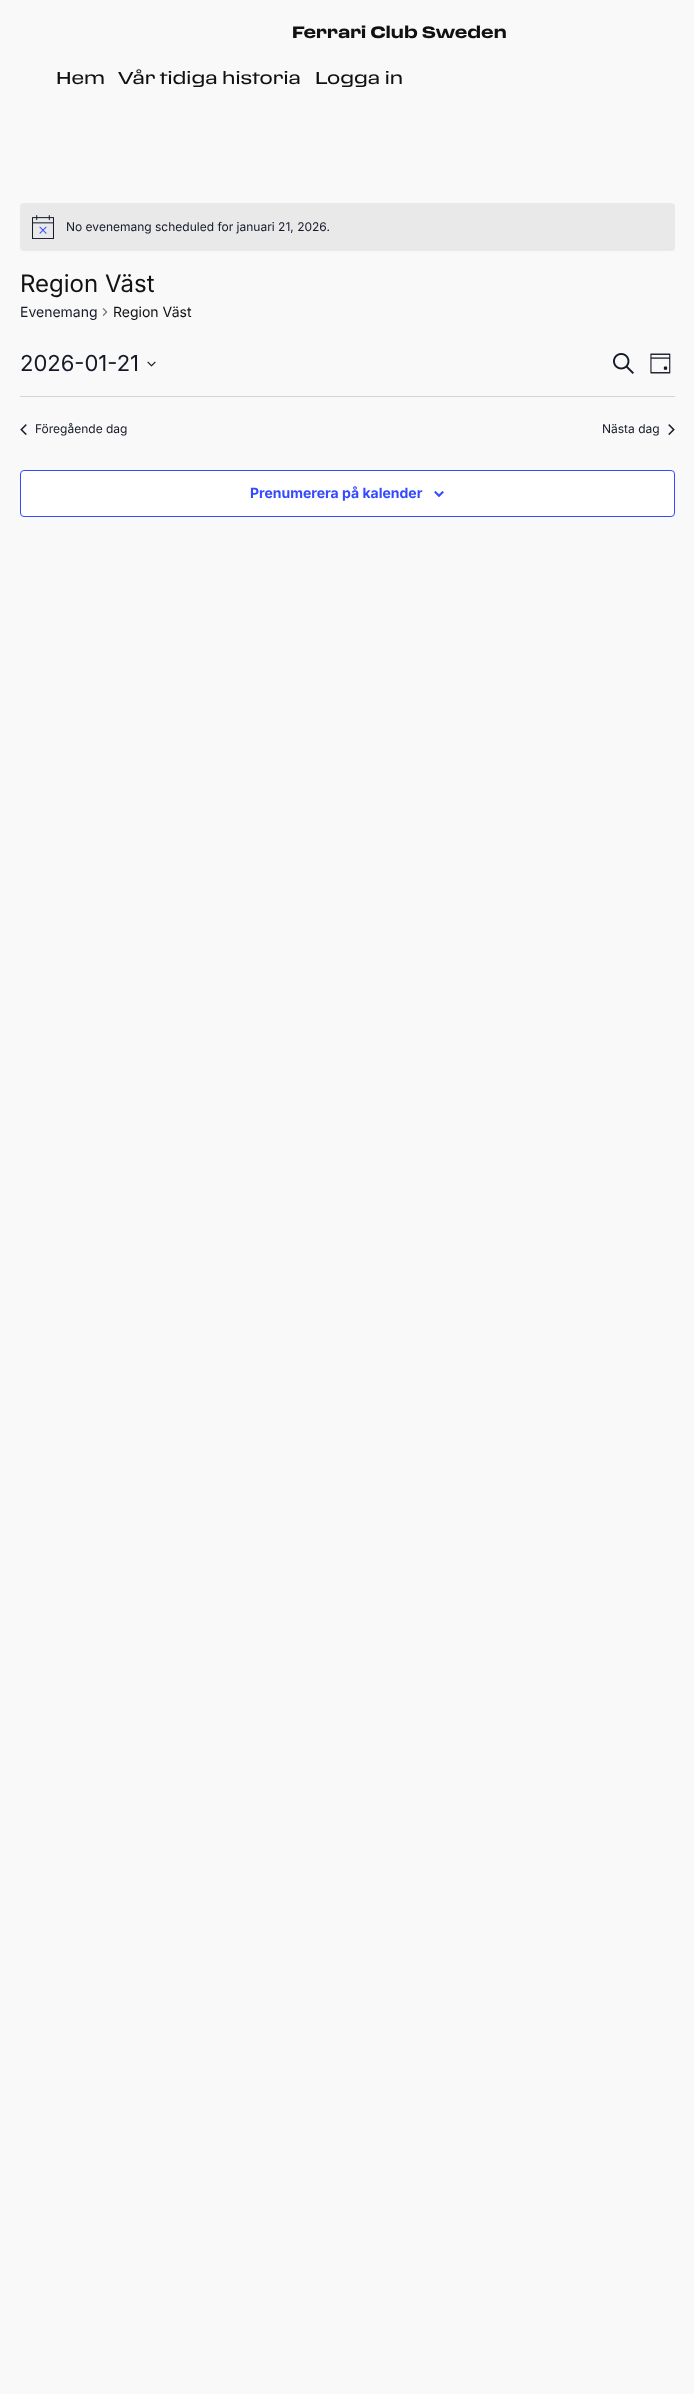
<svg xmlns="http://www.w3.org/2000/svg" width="694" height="2394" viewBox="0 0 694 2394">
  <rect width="100%" height="100%" fill="rgb(249,249,249)"/>
  <text x="292" y="38" font-family="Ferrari" font-size="16" font-weight="bold" fill="rgb(17,17,17)">Ferrari Club Sweden</text>
  <g font-family="Ferrari" font-size="16.75" fill="rgb(17,17,17)">
    <text x="56" y="84">Hem</text>
    <text x="118" y="84">Vår tidiga historia</text>
    <text x="315" y="84">Logga in</text>
  </g>
  <rect x="20" y="203" width="655" height="48" rx="4" fill="rgb(233,233,234)"/>
  <image x="32" y="215" width="22" height="24" href="pic1.png"/>
  <text x="66" y="231" font-family="Inter" font-size="12" fill="rgb(20,24,39)">No evenemang scheduled for januari 21, 2026.</text>
  <text x="20" y="292" font-family="Inter" font-size="24" fill="rgb(17,17,17)">Region Väst</text>
  <text x="20" y="317" font-family="Inter" font-size="14" fill="rgb(20,24,39)">Evenemang</text>
  <image x="102" y="308" width="6" height="8" href="pic2.png"/>
  <text x="113" y="317" font-family="Inter" font-size="14" fill="rgb(17,17,17)">Region Väst</text>
  <text x="20" y="371" font-family="Inter" font-size="22" fill="rgb(20,24,39)">2026-01-21</text>
  <image x="147" y="361" width="9" height="6" href="pic3.png"/>
  <image x="613" y="353" width="21" height="21" href="pic4.png"/>
  <image x="650" y="353" width="21" height="21" href="pic5.png"/>
  <rect x="20" y="396" width="655" height="1" fill="rgb(213,213,213)"/>
  <image x="20" y="424" width="7" height="11" href="pic6.png"/>
  <g font-family="Inter" font-size="12" fill="rgb(20,24,39)">
    <text x="35" y="433">Föregående dag</text>
    <text x="602" y="433">Nästa dag</text>
  </g>
  <image x="668" y="424" width="7" height="11" href="pic7.png"/>
  <rect x="20.5" y="470.5" width="654" height="46" rx="3.5" fill="rgb(255,255,255)" stroke="rgb(51,74,255)"/>
  <text x="250" y="498" font-family="Inter" font-size="14" font-weight="bold" fill="rgb(51,74,255)">Prenumerera på kalender</text>
  <image x="434" y="491" width="10" height="6" href="pic8.png"/>
</svg>
